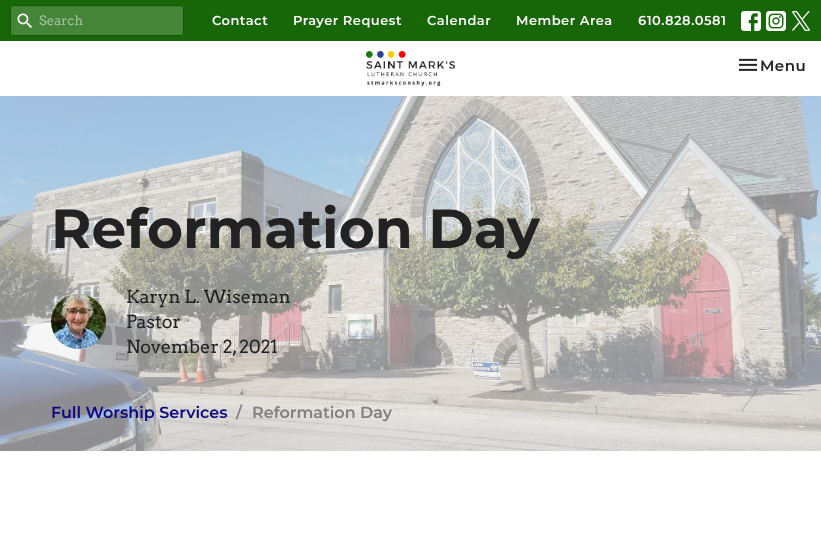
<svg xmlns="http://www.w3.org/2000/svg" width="821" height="537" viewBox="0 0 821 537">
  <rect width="100%" height="100%" fill="rgb(255,255,255)"/>
  <rect x="0" y="0" width="821" height="41" fill="rgb(23,102,7)"/>
  <rect x="10" y="5" width="174" height="31" rx="3" fill="rgb(69,133,57)"/>
  <path d="M13 7H181C182 7 183 8 183 9C183 8 183 6 181 6H12C11 7 11 8 11 9C11 8 12 7 13 7Z" fill="rgb(64,123,53)"/>
  <rect x="10.5" y="5.5" width="173" height="30" rx="2.5" fill="none" stroke="rgb(20,88,6)"/>
  <image x="17" y="13" width="15" height="15" href="pic1.png"/>
  <text x="39" y="25" font-family="Arvo" font-size="13" fill="rgb(162,194,156)">Search</text>
  <g font-family="Montserrat" font-size="13" font-weight="600" letter-spacing="0.5" fill="rgb(255,255,255)">
    <text x="212" y="25">Contact</text>
    <text x="293" y="25">Prayer Request</text>
    <text x="427" y="25">Calendar</text>
    <text x="516" y="25">Member Area</text>
    <text x="638" y="25">610.828.0581</text>
  </g>
  <image x="741" y="11" width="20" height="20" href="pic2.png"/>
  <image x="766" y="11" width="20" height="20" href="pic3.png"/>
  <image x="792" y="11" width="18" height="20" href="pic4.png"/>
  <image x="366" y="51" width="89" height="35" href="pic5.png"/>
  <image x="739" y="58" width="18" height="13" href="pic6.png"/>
  <text x="760" y="71" font-family="Montserrat" font-size="15" font-weight="600" letter-spacing="0.5" fill="rgb(34,34,34)">Menu</text>
  <image x="0" y="96" width="821" height="355" href="pic7.png"/>
  <text x="51" y="248" font-family="Montserrat" font-size="55" font-weight="bold" fill="rgb(34,34,34)">Reformation Day</text>
  <image x="51" y="294" width="55" height="55" href="pic8.png"/>
  <g font-family="Arvo" font-size="18" fill="rgb(34,34,34)">
    <text>
      <tspan x="126" y="303">Karyn L. Wiseman</tspan>
      <tspan x="126" y="328">Pastor</tspan>
      <tspan x="126" y="353">November 2, 2021</tspan>
    </text>
  </g>
  <text x="51" y="418" font-family="Montserrat" font-size="16" font-weight="600" fill="rgb(12,8,130)">Full Worship Services</text>
  <g font-family="Montserrat" font-size="16" font-weight="600" fill="rgb(128,128,128)">
    <text x="236" y="418">/</text>
    <text x="252" y="418">Reformation Day</text>
  </g>
</svg>
